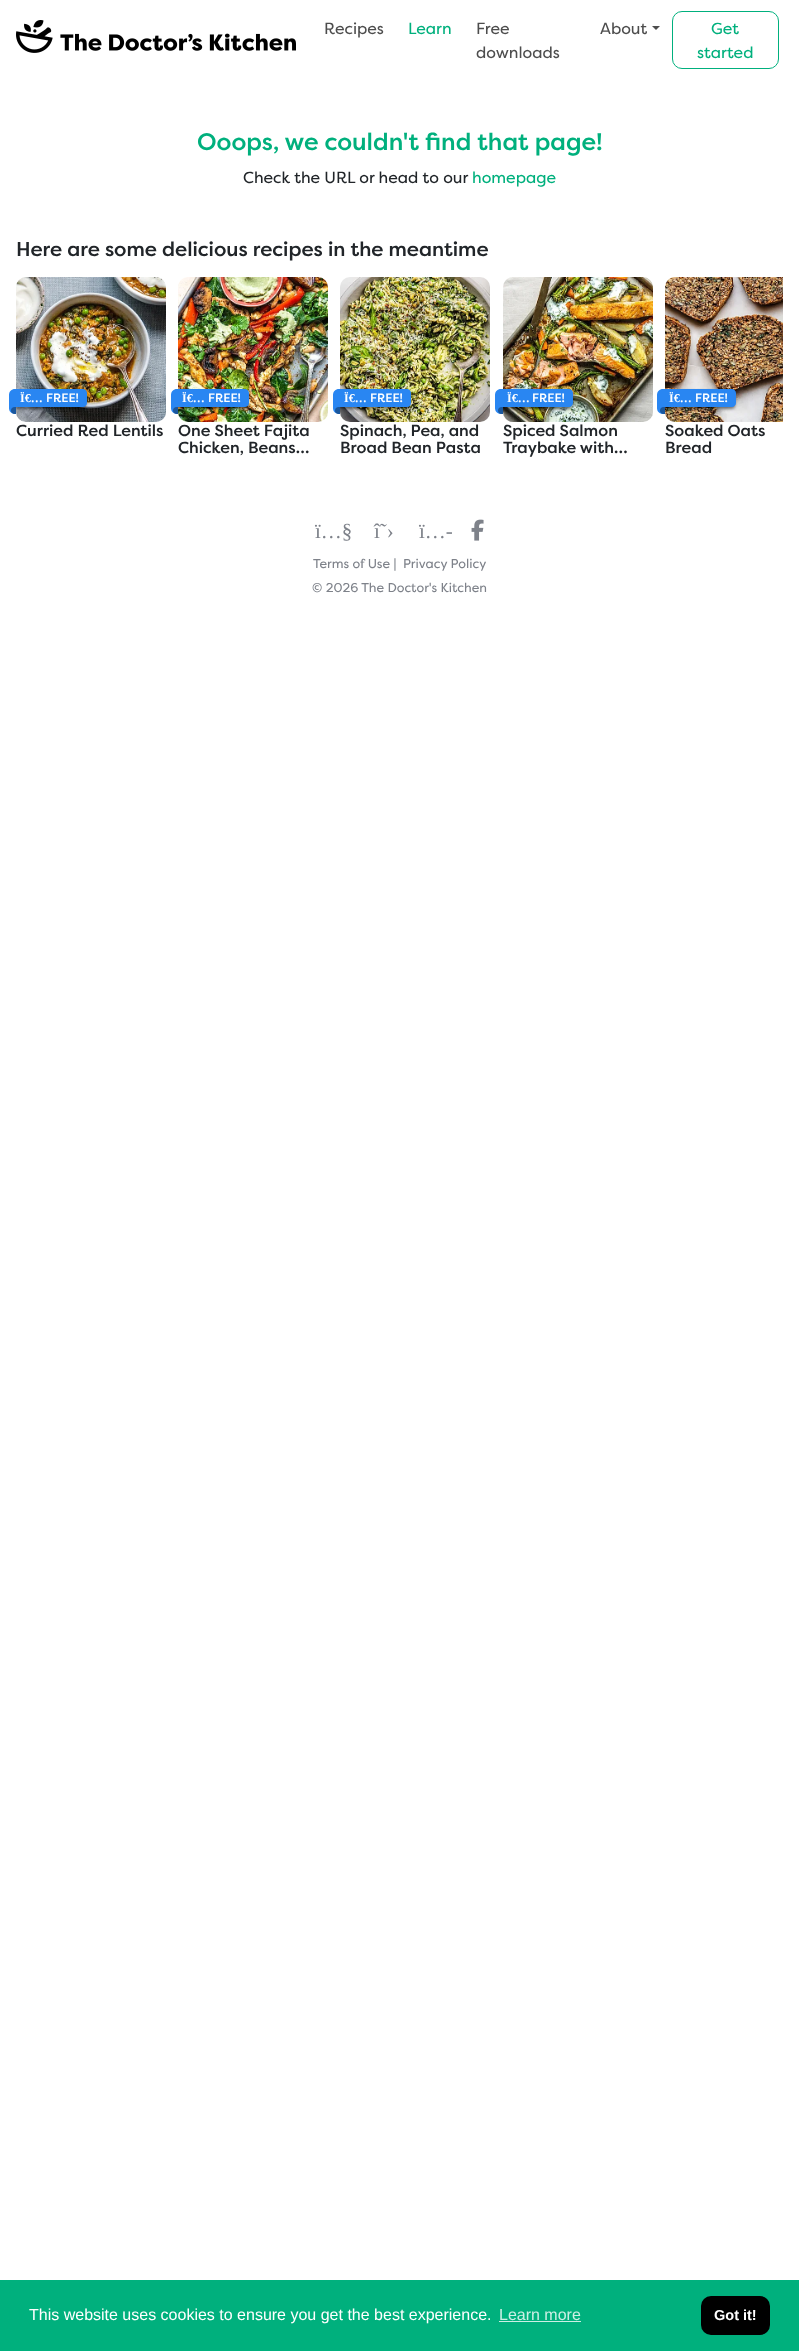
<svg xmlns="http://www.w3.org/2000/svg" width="799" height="2351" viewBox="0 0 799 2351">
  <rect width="100%" height="100%" fill="rgb(255,255,255)"/>
  <image x="16" y="20" width="280" height="33" href="pic1.png"/>
  <text x="324" y="34" font-family="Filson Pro" font-size="16" fill="rgb(77,77,77)">Recipes</text>
  <text x="408" y="34" font-family="Filson Pro" font-size="16" fill="rgb(0,176,125)">Learn</text>
  <g font-family="Filson Pro" font-size="16" fill="rgb(77,77,77)">
    <text>
      <tspan x="476" y="34">Free</tspan>
      <tspan x="476" y="58">downloads</tspan>
    </text>
    <text x="600" y="34">About</text>
  </g>
  <path d="M652 26H660L656 30Z" fill="rgb(77,77,77)"/>
  <rect x="672.5" y="11.5" width="106" height="57" rx="9.5" fill="none" stroke="rgb(0,176,125)"/>
  <g font-family="Filson Pro" font-size="16" fill="rgb(0,176,125)">
    <text x="711" y="34">Get</text>
    <text x="697" y="58">started</text>
  </g>
  <text x="197" y="150" font-family="Filson Pro" font-size="24" font-weight="500" fill="rgb(0,176,125)">Ooops, we couldn't find that page!</text>
  <text x="243" y="183" font-family="Filson Pro" font-size="16" fill="rgb(33,37,41)">Check the URL or head to our</text>
  <text x="472" y="183" font-family="Filson Pro" font-size="16" fill="rgb(0,176,125)">homepage</text>
  <text x="16" y="256" font-family="Filson Pro" font-size="20" font-weight="500" fill="rgb(33,37,41)">Here are some delicious recipes in the meantime</text>
  <image x="16" y="277" width="150" height="145" href="pic2.png"/>
  <rect x="15" y="391" width="71" height="18" rx="4" fill="rgba(0,0,0,0.5)" filter="blur(1.5px)"/>
  <path d="M16 389H83C85 389 87 391 87 393V403C87 405 85 407 83 407H16Z" fill="rgb(41,134,242)"/>
  <path d="M15 389H16V414H15C11.5 414 9 411.5 9 408V395C9 391.5 11.5 389 15 389Z" fill="rgb(41,134,242)"/>
  <text x="20" y="402" font-family="Liberation Serif" font-size="12" font-weight="bold" fill="rgb(255,255,255)">Ï€…</text>
  <text x="46" y="402" font-family="Filson Pro" font-size="12" font-weight="500" fill="rgb(255,255,255)">FREE!</text>
  <path d="M14.5 407H16V414H14.5C12.5 414 11 412.5 11 410.5C11 408.5 12.5 407 14.5 407Z" fill="rgba(0,0,0,0.35)"/>
  <text x="16" y="436" font-family="Filson Pro" font-size="16" font-weight="500" fill="rgb(33,37,41)">Curried Red Lentils</text>
  <image x="178" y="277" width="150" height="145" href="pic3.png"/>
  <rect x="177" y="391" width="71" height="18" rx="4" fill="rgba(0,0,0,0.5)" filter="blur(1.5px)"/>
  <path d="M178 389H245C247 389 249 391 249 393V403C249 405 247 407 245 407H178Z" fill="rgb(41,134,242)"/>
  <path d="M177 389H178V414H177C173.5 414 171 411.5 171 408V395C171 391.5 173.5 389 177 389Z" fill="rgb(41,134,242)"/>
  <text x="182" y="402" font-family="Liberation Serif" font-size="12" font-weight="bold" fill="rgb(255,255,255)">Ï€…</text>
  <text x="208" y="402" font-family="Filson Pro" font-size="12" font-weight="500" fill="rgb(255,255,255)">FREE!</text>
  <path d="M176.5 407H178V414H176.5C174.5 414 173 412.5 173 410.5C173 408.5 174.5 407 176.5 407Z" fill="rgba(0,0,0,0.35)"/>
  <g font-family="Filson Pro" font-size="16" font-weight="500" fill="rgb(33,37,41)">
    <text>
      <tspan x="178" y="436">One Sheet Fajita</tspan>
      <tspan x="178" y="453">Chicken, Beans…</tspan>
    </text>
  </g>
  <image x="340" y="277" width="150" height="145" href="pic4.png"/>
  <rect x="339" y="391" width="71" height="18" rx="4" fill="rgba(0,0,0,0.5)" filter="blur(1.5px)"/>
  <path d="M340 389H407C409 389 411 391 411 393V403C411 405 409 407 407 407H340Z" fill="rgb(41,134,242)"/>
  <path d="M339 389H340V414H339C335.5 414 333 411.5 333 408V395C333 391.5 335.5 389 339 389Z" fill="rgb(41,134,242)"/>
  <text x="344" y="402" font-family="Liberation Serif" font-size="12" font-weight="bold" fill="rgb(255,255,255)">Ï€…</text>
  <text x="370" y="402" font-family="Filson Pro" font-size="12" font-weight="500" fill="rgb(255,255,255)">FREE!</text>
  <path d="M338.5 407H340V414H338.5C336.5 414 335 412.5 335 410.5C335 408.5 336.5 407 338.5 407Z" fill="rgba(0,0,0,0.35)"/>
  <g font-family="Filson Pro" font-size="16" font-weight="500" fill="rgb(33,37,41)">
    <text>
      <tspan x="340" y="436">Spinach, Pea, and</tspan>
      <tspan x="340" y="453">Broad Bean Pasta</tspan>
    </text>
  </g>
  <image x="503" y="277" width="150" height="145" href="pic5.png"/>
  <rect x="502" y="391" width="70" height="18" rx="4" fill="rgba(0,0,0,0.5)" filter="blur(1.5px)"/>
  <path d="M503 389H569C571 389 573 391 573 393V403C573 405 571 407 569 407H503Z" fill="rgb(41,134,242)"/>
  <path d="M501 389H503V414H501C497.5 414 495 411.5 495 408V395C495 391.5 497.5 389 501 389Z" fill="rgb(41,134,242)"/>
  <text x="507" y="402" font-family="Liberation Serif" font-size="12" font-weight="bold" fill="rgb(255,255,255)">Ï€…</text>
  <text x="532" y="402" font-family="Filson Pro" font-size="12" font-weight="500" fill="rgb(255,255,255)">FREE!</text>
  <path d="M501.5 407H503V414H501.5C499.5 414 498 412.5 498 410.5C498 408.5 499.5 407 501.5 407Z" fill="rgba(0,0,0,0.35)"/>
  <g font-family="Filson Pro" font-size="16" font-weight="500" fill="rgb(33,37,41)">
    <text>
      <tspan x="503" y="436">Spiced Salmon</tspan>
      <tspan x="503" y="453">Traybake with…</tspan>
    </text>
  </g>
  <image x="665" y="277" width="118" height="145" href="pic6.png"/>
  <rect x="664" y="391" width="71" height="18" rx="4" fill="rgba(0,0,0,0.5)" filter="blur(1.5px)"/>
  <path d="M665 389H732C734 389 736 391 736 393V403C736 405 734 407 732 407H665Z" fill="rgb(41,134,242)"/>
  <path d="M663 389H665V414H663C659.5 414 657 411.5 657 408V395C657 391.5 659.5 389 663 389Z" fill="rgb(41,134,242)"/>
  <text x="669" y="402" font-family="Liberation Serif" font-size="12" font-weight="bold" fill="rgb(255,255,255)">Ï€…</text>
  <text x="695" y="402" font-family="Filson Pro" font-size="12" font-weight="500" fill="rgb(255,255,255)">FREE!</text>
  <path d="M663.5 407H665V414H663.5C661.5 414 660 412.5 660 410.5C660 408.5 661.5 407 663.5 407Z" fill="rgba(0,0,0,0.35)"/>
  <g font-family="Filson Pro" font-size="16" font-weight="500" fill="rgb(33,37,41)">
    <text>
      <tspan x="665" y="436">Soaked Oats</tspan>
      <tspan x="665" y="453">Bread</tspan>
    </text>
  </g>
  <g font-family="Liberation Serif" font-size="21" fill="rgb(126,130,138)">
    <text x="315" y="538">ï…§</text>
    <text x="374" y="538">î˜›</text>
    <text x="419" y="538">ï…-</text>
  </g>
  <image x="471" y="519" width="13" height="22" href="pic7.png"/>
  <g font-family="Filson Pro" font-size="12.75" fill="rgb(126,130,138)">
    <text x="313" y="568">Terms of Use |</text>
    <text x="403" y="568">Privacy Policy</text>
    <text x="312" y="592">© 2026 The Doctor's Kitchen</text>
  </g>
  <rect x="0" y="2280" width="799" height="71" fill="rgb(0,176,125)"/>
  <text x="29" y="2320" font-family="Liberation Sans" font-size="16" fill="rgb(255,255,255)">This website uses cookies to ensure you get the best experience.</text>
  <text x="499" y="2320" font-family="Liberation Sans" font-size="16" fill="rgb(204,239,229)">Learn more</text>
  <rect x="499" y="2321" width="82" height="1" fill="rgb(204,239,229)"/>
  <rect x="701" y="2296" width="69" height="39" rx="10" fill="rgb(0,0,0)"/>
  <text x="714" y="2320" font-family="Liberation Sans" font-size="14.5" font-weight="bold" fill="rgb(255,255,255)">Got it!</text>
</svg>
